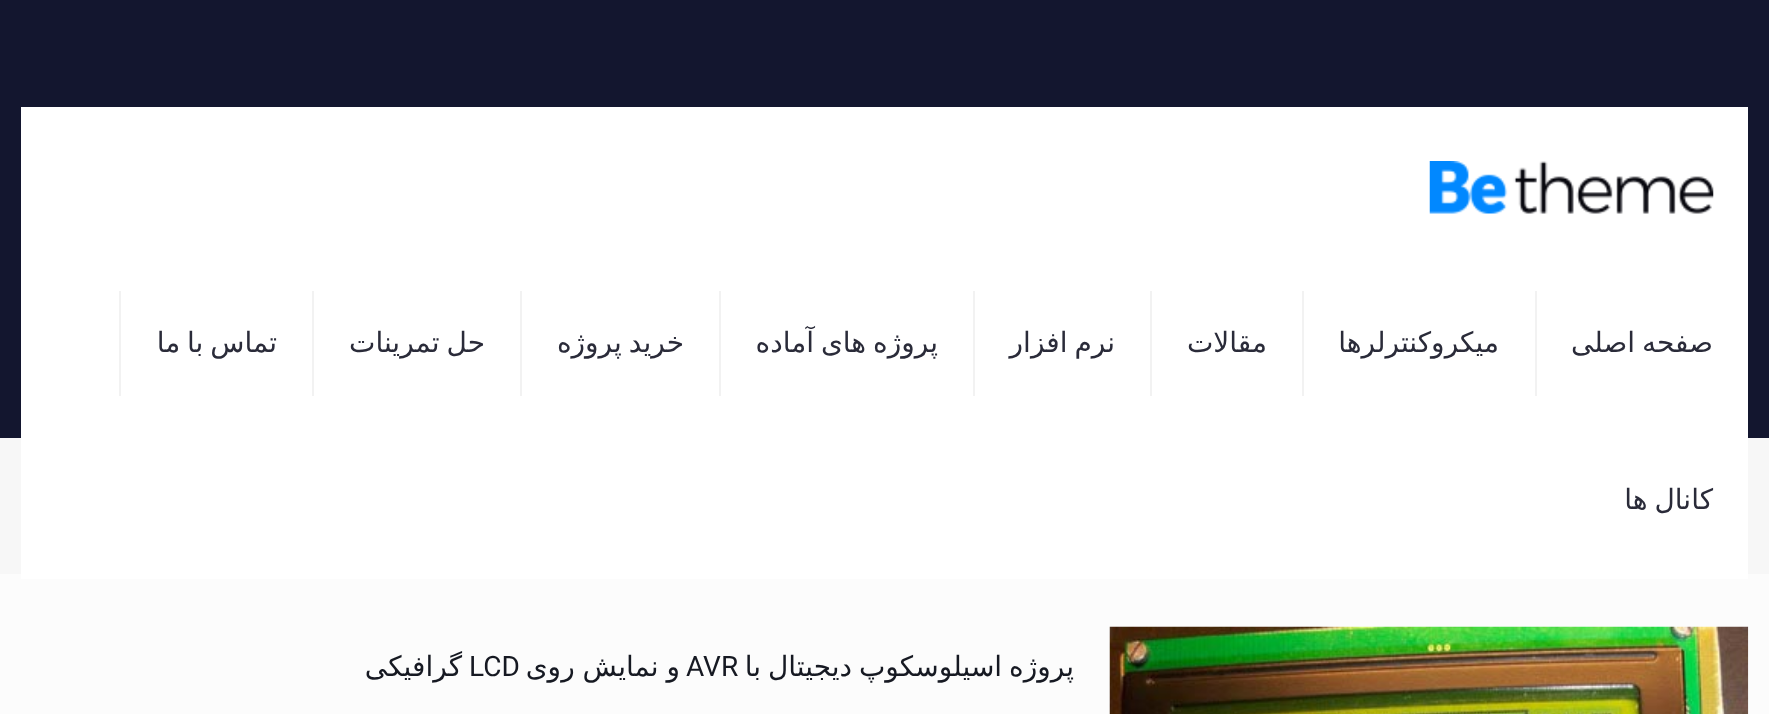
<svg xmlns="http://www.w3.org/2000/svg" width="1769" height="714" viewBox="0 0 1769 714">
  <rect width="100%" height="100%" fill="rgb(252,252,252)"/>
  <rect x="0" y="0" width="1769" height="438" fill="rgb(19,22,47)"/>
  <rect x="0" y="438" width="1769" height="136" fill="rgb(247,247,247)"/>
  <rect x="21" y="107" width="1727" height="472" fill="rgb(255,255,255)"/>
  <image x="1429" y="161" width="285" height="53" href="pic1.png"/>
  <rect x="1535" y="291" width="2" height="105" fill="rgb(242,242,242)"/>
  <text x="1713" y="352" word-spacing="-2" font-family="DejaVu Sans" font-size="28" direction="rtl" fill="rgb(42,43,57)">صفحه اصلی</text>
  <rect x="1302" y="291" width="2" height="105" fill="rgb(242,242,242)"/>
  <text x="1499" y="352" font-family="DejaVu Sans" font-size="28" direction="rtl" fill="rgb(42,43,57)">میکروکنترلرها</text>
  <rect x="1150" y="291" width="2" height="105" fill="rgb(242,242,242)"/>
  <text x="1267" y="352" font-family="DejaVu Sans" font-size="28" direction="rtl" fill="rgb(42,43,57)">مقالات</text>
  <rect x="973" y="291" width="2" height="105" fill="rgb(242,242,242)"/>
  <text x="1115" y="352" word-spacing="-2" font-family="DejaVu Sans" font-size="28" direction="rtl" fill="rgb(42,43,57)">نرم افزار</text>
  <rect x="719" y="291" width="2" height="105" fill="rgb(242,242,242)"/>
  <text x="938" y="352" word-spacing="-2" font-family="DejaVu Sans" font-size="28" direction="rtl" fill="rgb(42,43,57)">پروژه های آماده</text>
  <rect x="520" y="291" width="2" height="105" fill="rgb(242,242,242)"/>
  <text x="684" y="352" word-spacing="-2" font-family="DejaVu Sans" font-size="28" direction="rtl" fill="rgb(42,43,57)">خرید پروژه</text>
  <rect x="312" y="291" width="2" height="105" fill="rgb(242,242,242)"/>
  <text x="485" y="352" word-spacing="-2" font-family="DejaVu Sans" font-size="28" direction="rtl" fill="rgb(42,43,57)">حل تمرینات</text>
  <rect x="119" y="291" width="2" height="105" fill="rgb(242,242,242)"/>
  <g font-family="DejaVu Sans" font-size="28" direction="rtl" fill="rgb(42,43,57)">
    <text x="277" y="352" word-spacing="-2">تماس با ما</text>
    <text x="1713" y="509" word-spacing="-2">کانال ها</text>
  </g>
  <image x="1109" y="626" width="640" height="88" href="pic2.png"/>
  <text x="1074" y="676" word-spacing="-2" font-family="DejaVu Sans" font-size="28" direction="rtl" fill="rgb(22,25,34)">پروژه اسیلوسکوپ دیجیتال با</text>
  <text x="686" y="676" font-family="Roboto" font-size="28" fill="rgb(22,25,34)">AVR</text>
  <text x="680" y="676" word-spacing="-1" font-family="DejaVu Sans" font-size="28" direction="rtl" fill="rgb(22,25,34)">و نمایش روی</text>
  <text x="469" y="676" font-family="Roboto" font-size="28" fill="rgb(22,25,34)">LCD</text>
  <text x="462" y="676" font-family="DejaVu Sans" font-size="28" direction="rtl" fill="rgb(22,25,34)">گرافیکی</text>
</svg>
